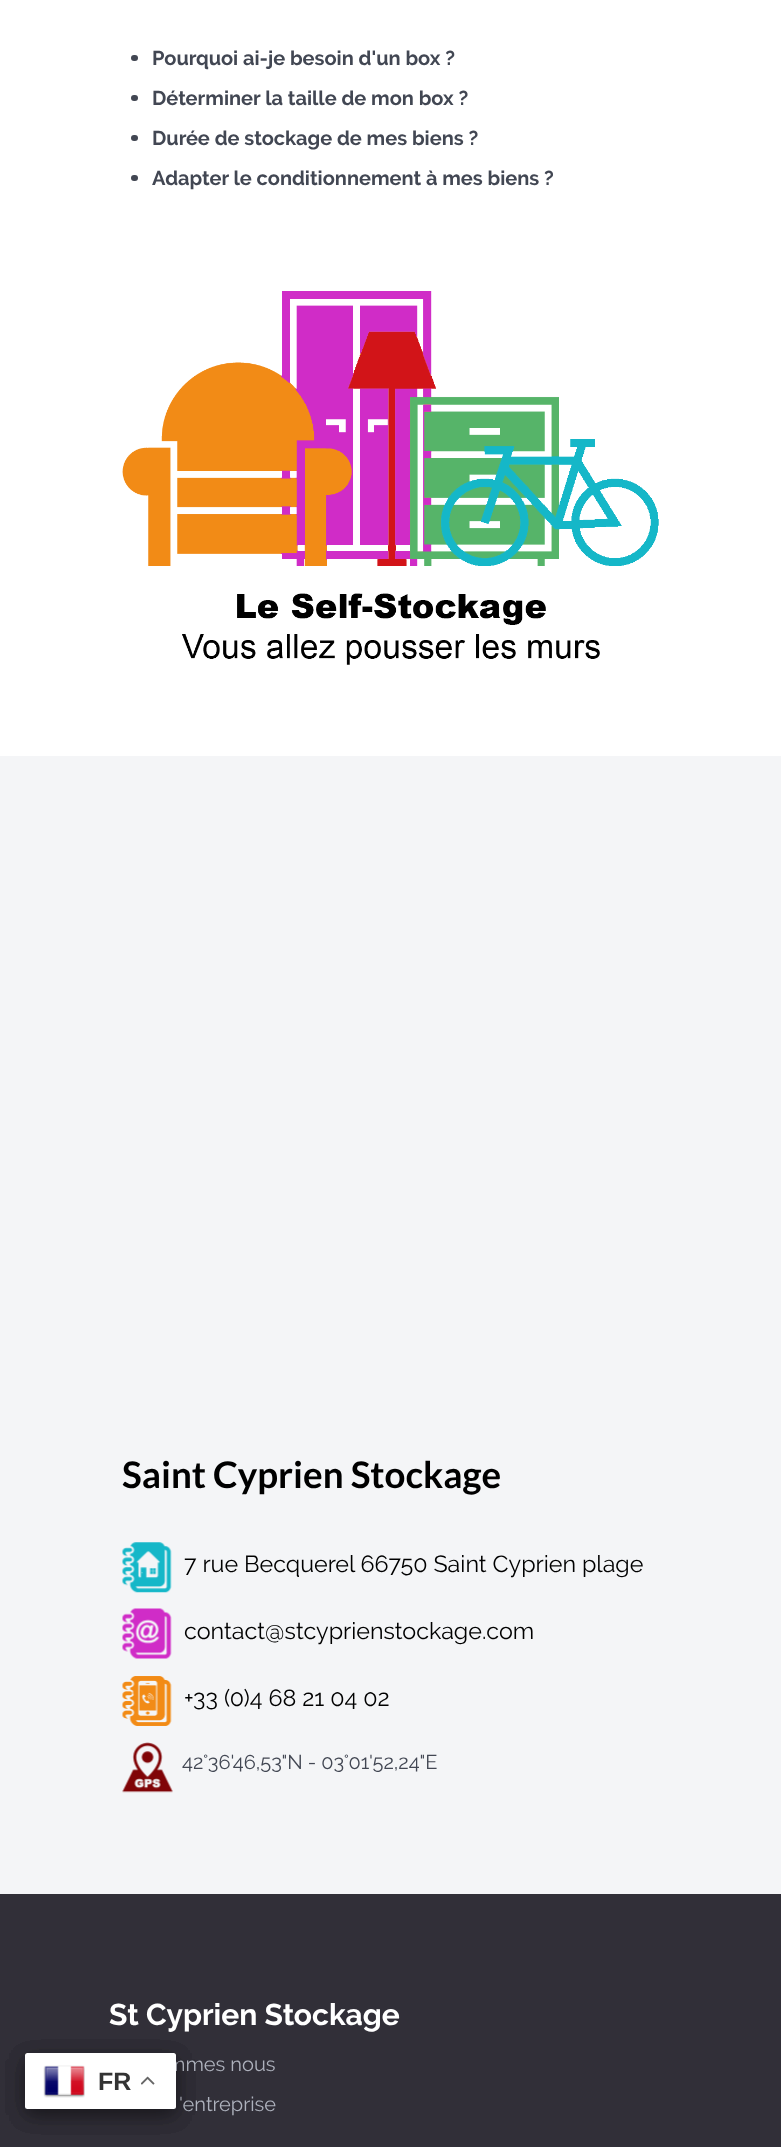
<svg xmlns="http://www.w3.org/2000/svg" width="781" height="2147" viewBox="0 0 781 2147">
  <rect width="100%" height="100%" fill="rgb(255,255,255)"/>
  <rect x="131" y="55" width="7" height="6" rx="3" fill="rgb(66,71,83)"/>
  <text x="152" y="65" font-family="Raleway" font-size="20" font-weight="bold" fill="rgb(66,71,83)">Pourquoi ai-je besoin d'un box ?</text>
  <rect x="131" y="95" width="7" height="6" rx="3" fill="rgb(66,71,83)"/>
  <text x="152" y="105" font-family="Raleway" font-size="20" font-weight="bold" fill="rgb(66,71,83)">Déterminer la taille de mon box ?</text>
  <rect x="131" y="135" width="7" height="6" rx="3" fill="rgb(66,71,83)"/>
  <text x="152" y="145" font-family="Raleway" font-size="20" font-weight="bold" fill="rgb(66,71,83)">Durée de stockage de mes biens ?</text>
  <rect x="131" y="175" width="7" height="6" rx="3" fill="rgb(66,71,83)"/>
  <text x="152" y="185" font-family="Raleway" font-size="20" font-weight="bold" fill="rgb(66,71,83)">Adapter le conditionnement à mes biens ?</text>
  <image x="122" y="291" width="537" height="374" href="pic1.png"/>
  <rect x="0" y="756" width="781" height="1138" fill="rgb(244,245,247)"/>
  <text x="122" y="1488" font-family="Lato" font-size="36.75" font-weight="bold" fill="rgb(0,0,0)">Saint Cyprien Stockage</text>
  <image x="122" y="1542" width="50" height="51" href="pic2.png"/>
  <text x="184" y="1572" font-family="Raleway" font-size="23.3" fill="rgb(0,0,0)">7 rue Becquerel 66750 Saint Cyprien plage</text>
  <image x="122" y="1608" width="50" height="51" href="pic3.png"/>
  <text x="184" y="1639" font-family="Raleway" font-size="23.3" fill="rgb(0,0,0)">contact@stcyprienstockage.com</text>
  <image x="122" y="1676" width="50" height="50" href="pic4.png"/>
  <text x="184" y="1706" font-family="Raleway" font-size="23.3" fill="rgb(0,0,0)">+33 (0)4 68 21 04 02</text>
  <image x="122" y="1742" width="51" height="51" href="pic5.png"/>
  <text x="182" y="1769" font-family="Raleway" font-size="20" fill="rgb(66,71,83)">42°36'46,53"N - 03°01'52,24"E</text>
  <rect x="0" y="1894" width="781" height="253" fill="rgb(49,47,56)"/>
  <rect x="25" y="2059" width="151" height="56" rx="2.5" fill="rgba(0,0,0,0.15)" filter="blur(9.5px)"/>
  <rect x="25" y="2059" width="151" height="56" rx="2.5" fill="rgba(0,0,0,0.15)" filter="blur(9.5px)"/>
  <text x="109" y="2025" font-family="Raleway" font-size="30" font-weight="bold" fill="rgb(255,255,255)">St Cyprien Stockage</text>
  <g font-family="Raleway" font-size="20" fill="rgb(174,178,189)">
    <text x="167" y="2071">mmes nous</text>
    <text x="179" y="2111">'entreprise</text>
  </g>
  <rect x="25" y="2059" width="151" height="56" rx="2.5" fill="rgba(0,0,0,0.15)" filter="blur(9.5px)"/>
  <rect x="25" y="2059" width="151" height="56" rx="2.5" fill="rgba(0,0,0,0.15)" filter="blur(9.5px)"/>
  <rect x="25" y="2053" width="151" height="56" rx="2.5" fill="rgb(255,255,255)"/>
  <image x="43" y="2065" width="42" height="33" href="pic6.png"/>
  <text x="98" y="2090" font-family="Liberation Sans" font-size="25" font-weight="bold" fill="rgb(51,51,51)">FR</text>
  <image x="141" y="2076" width="14" height="9" href="pic7.png"/>
</svg>
